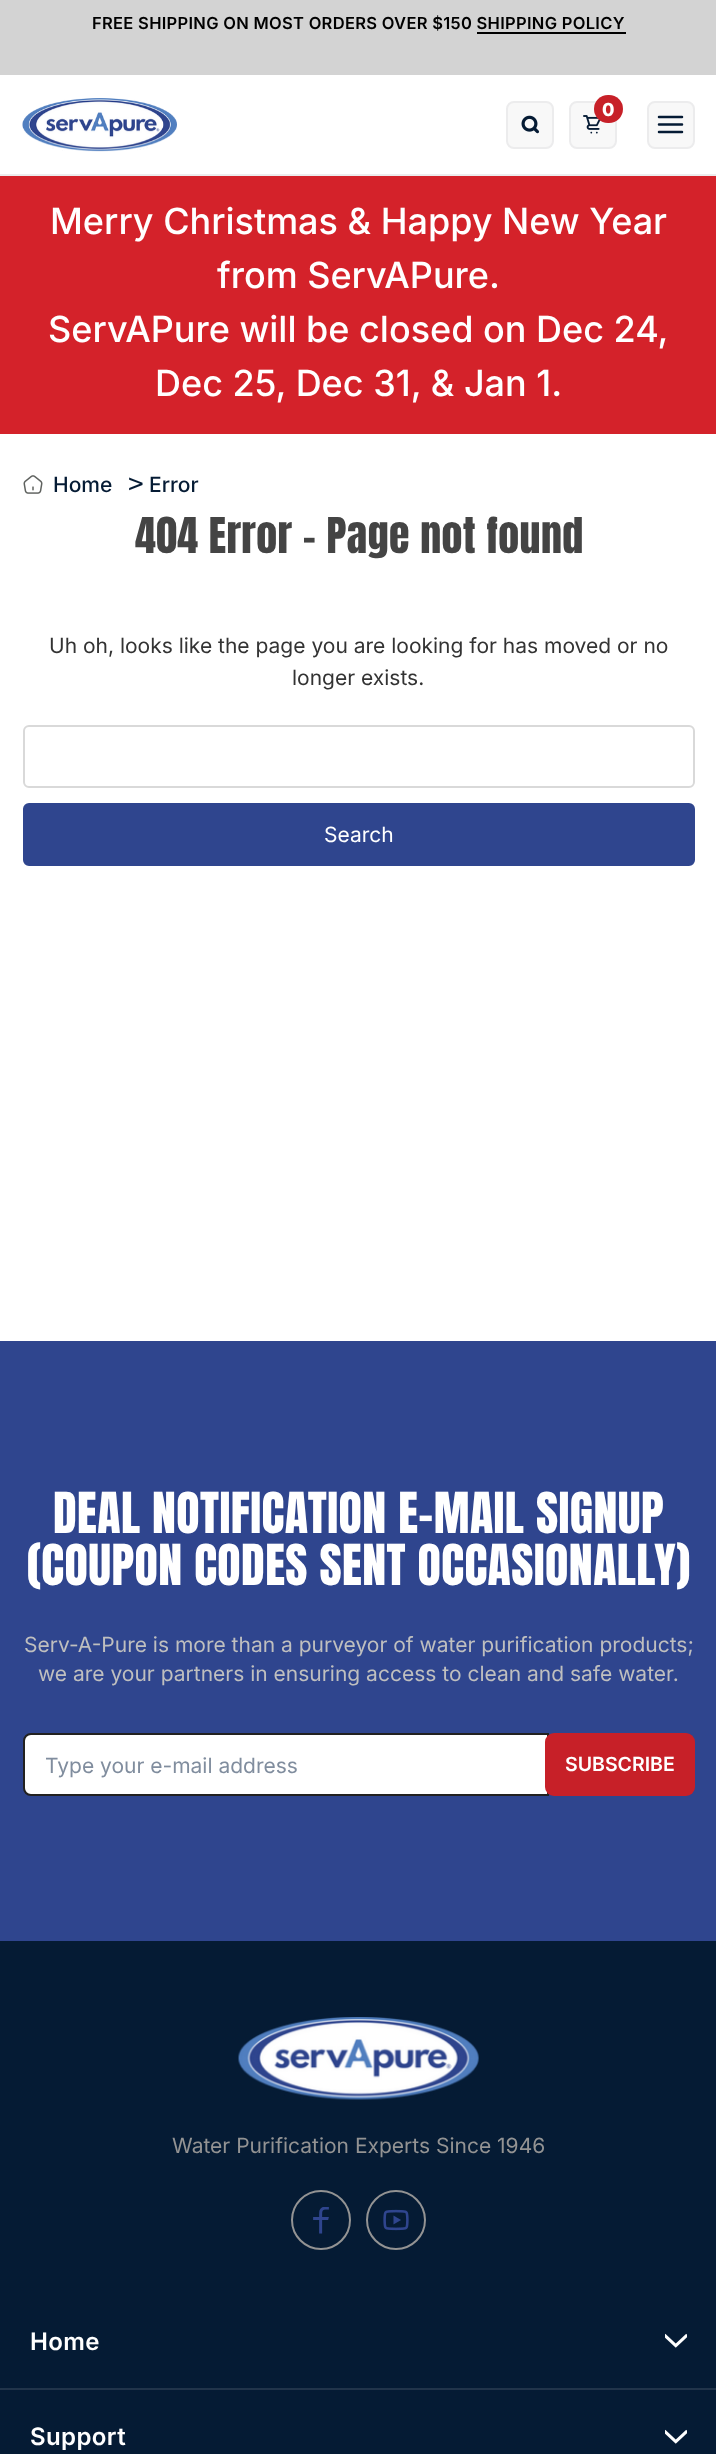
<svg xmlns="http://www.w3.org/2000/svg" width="716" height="2454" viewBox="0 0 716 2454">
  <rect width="100%" height="100%" fill="rgb(255,255,255)"/>
  <rect x="0" y="0" width="716" height="75" fill="rgb(211,211,211)"/>
  <text x="92" y="29" font-family="Inter" font-size="16.5" font-weight="600" letter-spacing="0.3" fill="rgb(0,0,0)">FREE SHIPPING ON MOST ORDERS OVER $150 SHIPPING POLICY</text>
  <rect x="477" y="32" width="149" height="2" fill="rgb(0,0,0)"/>
  <rect x="0" y="174" width="716" height="2" fill="rgb(236,236,237)"/>
  <image x="22" y="98" width="155" height="54" href="pic1.png"/>
  <rect x="507" y="102" width="46" height="46" rx="7" fill="rgb(248,248,248)" stroke="rgb(236,236,237)" stroke-width="2"/>
  <image x="521" y="115" width="19" height="19" href="pic2.png"/>
  <rect x="570" y="102" width="46" height="46" rx="7" fill="rgb(248,248,248)" stroke="rgb(236,236,237)" stroke-width="2"/>
  <image x="583" y="115" width="18" height="19" href="pic3.png"/>
  <rect x="594" y="95" width="29" height="28" rx="14" fill="rgb(199,32,40)"/>
  <text x="602" y="116" font-family="Inter" font-size="18" font-weight="800" fill="rgb(255,255,255)">0</text>
  <rect x="648" y="102" width="46" height="46" rx="7" fill="rgb(248,248,248)" stroke="rgb(236,236,237)" stroke-width="2"/>
  <path d="M659 124.5H682M659 117H682M659 132H682" fill="none" stroke="rgb(5,27,52)" stroke-width="2.5" stroke-linecap="round" stroke-linejoin="round"/>
  <rect x="0" y="176" width="716" height="258" fill="rgb(212,34,42)"/>
  <g font-family="Inter" font-size="36" font-weight="500" fill="rgb(255,255,255)">
    <text x="50" y="234">Merry Christmas &amp; Happy New Year</text>
    <text x="217" y="288">from ServAPure.</text>
    <text x="48" y="342">ServAPure will be closed on Dec 24,</text>
    <text x="155" y="396">Dec 25, Dec 31, &amp; Jan 1.</text>
  </g>
  <image x="23" y="475" width="20" height="19" href="pic4.png"/>
  <text x="53" y="492" font-family="Inter" font-size="21" font-weight="500" fill="rgb(5,27,52)">Home</text>
  <text x="128" y="492" font-family="DejaVu Sans Mono" font-size="26" fill="rgb(5,27,52)">&gt;</text>
  <text x="149" y="492" font-family="Inter" font-size="21" font-weight="500" fill="rgb(5,27,52)">Error</text>
  <text x="135" y="553" font-family="Anton" font-size="42" letter-spacing="0.4" fill="rgb(68,68,68)">404 Error - Page not found</text>
  <g font-family="Inter" font-size="21" fill="rgb(51,51,51)">
    <text x="49" y="653">Uh oh, looks like the page you are looking for has moved or no</text>
    <text x="292" y="685">longer exists.</text>
  </g>
  <rect x="24" y="726" width="670" height="61" rx="5" fill="none" stroke="rgb(217,217,217)" stroke-width="2"/>
  <rect x="24" y="804" width="670" height="61" rx="5" fill="rgb(47,69,142)" stroke="rgb(47,69,142)" stroke-width="2"/>
  <text x="324" y="842" font-family="Inter" font-size="21" fill="rgb(255,255,255)">Search</text>
  <rect x="0" y="1341" width="716" height="600" fill="rgb(47,69,142)"/>
  <g font-family="Anton" font-size="48" letter-spacing="0.4" fill="rgb(255,255,255)">
    <text x="53" y="1533">DEAL NOTIFICATION E-MAIL SIGNUP</text>
    <text x="27" y="1585">(COUPON CODES SENT OCCASIONALLY)</text>
  </g>
  <g font-family="Inter" font-size="21" fill="rgb(191,191,191)">
    <text x="24" y="1652">Serv-A-Pure is more than a purveyor of water purification products;</text>
    <text x="38" y="1681">we are your partners in ensuring access to clean and safe water.</text>
  </g>
  <path d="M31 1734H548V1795H31C27 1795 24 1792 24 1788V1741C24 1737 27 1734 31 1734Z" fill="rgb(255,255,255)" stroke="rgb(34,33,32)" stroke-width="2"/>
  <text x="45" y="1773" font-family="Inter" font-size="21" fill="rgb(128,141,158)">Type your e-mail address</text>
  <rect x="545" y="1733" width="150" height="63" rx="9" fill="rgb(199,32,40)"/>
  <text x="565" y="1771" font-family="Inter" font-size="19.5" font-weight="600" fill="rgb(255,255,255)">SUBSCRIBE</text>
  <rect x="0" y="1941" width="716" height="513" fill="rgb(5,27,52)"/>
  <image x="238" y="2017" width="241" height="83" href="pic5.png"/>
  <text x="172" y="2153" font-family="Inter" font-size="21" fill="rgb(147,147,147)">Water Purification Experts Since 1946</text>
  <circle cx="321" cy="2220" r="29" fill="none" stroke="rgb(147,147,147)" stroke-width="2"/>
  <image x="313" y="2207" width="16" height="27" href="pic6.png"/>
  <circle cx="396" cy="2220" r="29" fill="none" stroke="rgb(147,147,147)" stroke-width="2"/>
  <image x="383" y="2209" width="26" height="22" href="pic7.png"/>
  <rect x="0" y="2388" width="716" height="2" fill="rgb(33,52,74)"/>
  <text x="30" y="2350" font-family="Inter" font-size="24" font-weight="600" letter-spacing="0.4" fill="rgb(255,255,255)">Home</text>
  <image x="665" y="2333" width="22" height="15" href="pic8.png"/>
  <text x="30" y="2445" font-family="Inter" font-size="24" font-weight="600" letter-spacing="0.4" fill="rgb(255,255,255)">Support</text>
  <image x="665" y="2429" width="22" height="15" href="pic8.png"/>
</svg>
